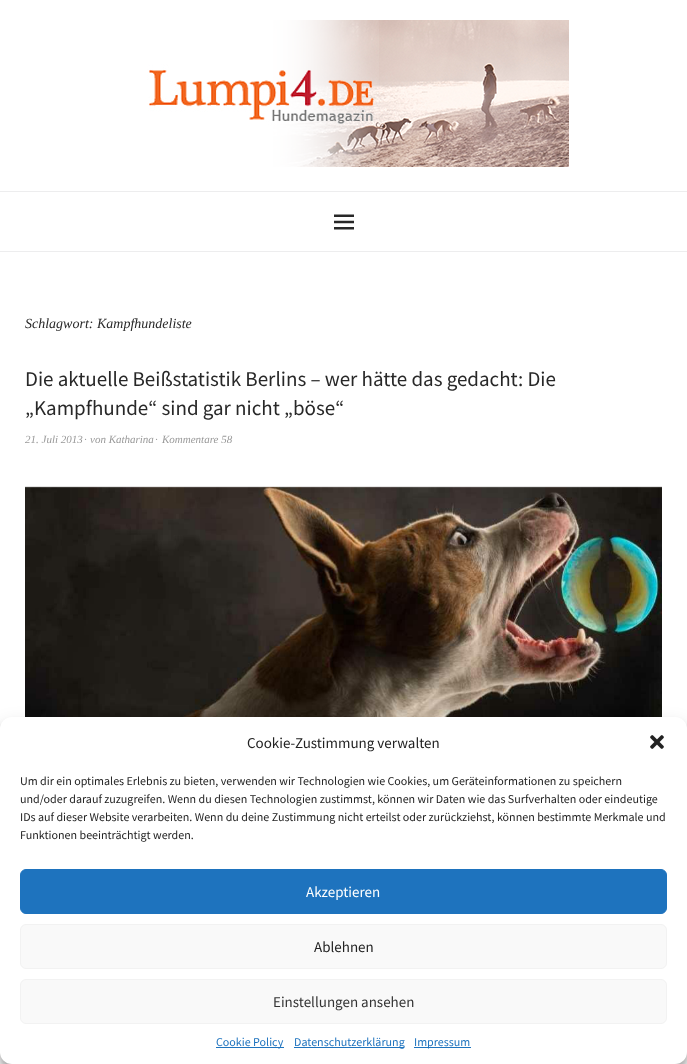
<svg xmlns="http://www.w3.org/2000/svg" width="687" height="1064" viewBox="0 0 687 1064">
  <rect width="100%" height="100%" fill="rgb(255,255,255)"/>
  <rect x="0" y="191" width="687" height="1" fill="rgb(237,237,238)"/>
  <image x="147" y="20" width="422" height="147" href="pic1.png"/>
  <rect x="0" y="251" width="687" height="1" fill="rgb(237,237,238)"/>
  <image x="334" y="214" width="20" height="16" href="pic2.png"/>
  <text x="25" y="328" font-family="Liberation Serif" font-size="14" font-style="italic" fill="rgb(40,40,40)">Schlagwort: Kampfhundeliste</text>
  <g font-family="Source Sans Pro" font-size="21" fill="rgb(40,40,40)">
    <text>
      <tspan x="25" y="386">Die aktuelle Beißstatistik Berlins – wer hätte das gedacht: Die</tspan>
      <tspan x="25" y="415">„Kampfhunde“ sind gar nicht „böse“</tspan>
    </text>
  </g>
  <g font-family="Liberation Serif" font-size="11" font-style="italic" fill="rgb(153,153,153)">
    <text x="25" y="443">21. Juli 2013</text>
    <text x="84" y="443">∙</text>
    <text x="90" y="443">von Katharina</text>
    <text x="155" y="443">∙</text>
    <text x="162" y="443">Kommentare 58</text>
  </g>
  <image x="25" y="486" width="637" height="231" href="pic3.png"/>
  <rect x="0" y="723" width="687" height="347" rx="12" fill="rgba(0,0,0,0.23)" filter="blur(3px)"/>
  <rect x="0" y="727" width="687" height="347" rx="12" fill="rgba(0,0,0,0.19)" filter="blur(10px)"/>
  <rect x="0" y="717" width="687" height="347" rx="12" fill="rgb(255,255,255)"/>
  <text x="247" y="748" font-family="Source Sans Pro" font-size="15" fill="rgb(34,34,34)">Cookie-Zustimmung verwalten</text>
  <image x="650" y="735" width="14" height="14" href="pic4.png"/>
  <g font-family="Source Sans Pro" font-size="12" fill="rgb(34,34,34)">
    <text>
      <tspan x="20" y="785">Um dir ein optimales Erlebnis zu bieten, verwenden wir Technologien wie Cookies, um Geräteinformationen zu speichern</tspan>
      <tspan x="20" y="803">und/oder darauf zuzugreifen. Wenn du diesen Technologien zustimmst, können wir Daten wie das Surfverhalten oder eindeutige</tspan>
      <tspan x="20" y="821">IDs auf dieser Website verarbeiten. Wenn du deine Zustimmung nicht erteilst oder zurückziehst, können bestimmte Merkmale und</tspan>
      <tspan x="20" y="839">Funktionen beeinträchtigt werden.</tspan>
    </text>
  </g>
  <rect x="20.5" y="869.5" width="646" height="44" rx="5.5" fill="rgb(30,115,190)" stroke="rgb(30,115,190)"/>
  <text x="306" y="897" font-family="Source Sans Pro" font-size="15" fill="rgb(255,255,255)">Akzeptieren</text>
  <rect x="20.5" y="924.5" width="646" height="44" rx="5.5" fill="rgb(249,249,249)" stroke="rgb(242,242,242)"/>
  <text x="314" y="952" font-family="Source Sans Pro" font-size="15" fill="rgb(34,34,34)">Ablehnen</text>
  <rect x="20.5" y="979.5" width="646" height="44" rx="5.5" fill="rgb(249,249,249)" stroke="rgb(242,242,242)"/>
  <text x="273" y="1007" font-family="Source Sans Pro" font-size="15" fill="rgb(51,51,51)">Einstellungen ansehen</text>
  <rect x="216" y="1047" width="68" height="1" fill="rgb(30,115,190)"/>
  <text x="216" y="1046" font-family="Source Sans Pro" font-size="12" fill="rgb(30,115,190)">Cookie Policy</text>
  <rect x="294" y="1047" width="110" height="1" fill="rgb(30,115,190)"/>
  <text x="294" y="1046" font-family="Source Sans Pro" font-size="12" fill="rgb(30,115,190)">Datenschutzerklärung</text>
  <rect x="414" y="1047" width="57" height="1" fill="rgb(30,115,190)"/>
  <text x="414" y="1046" font-family="Source Sans Pro" font-size="12" fill="rgb(30,115,190)">Impressum</text>
</svg>
